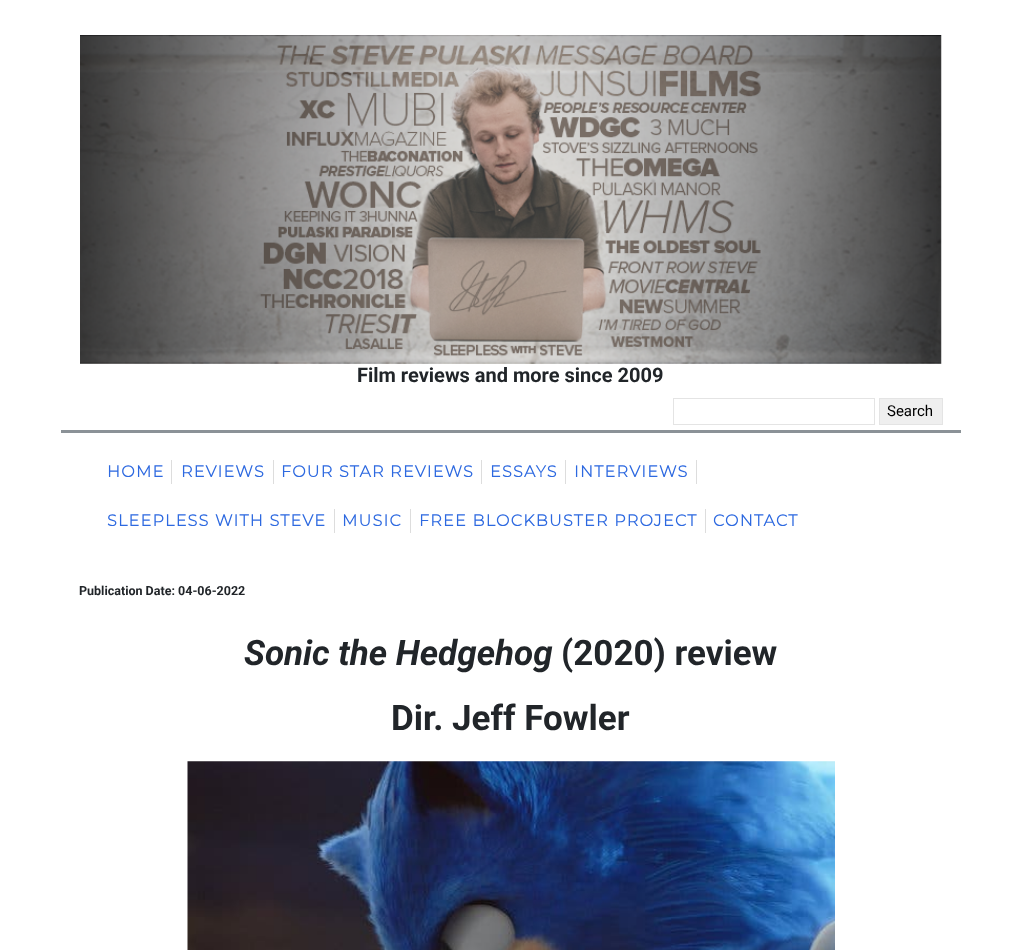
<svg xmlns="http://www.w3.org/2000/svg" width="1021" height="950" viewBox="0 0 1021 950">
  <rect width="100%" height="100%" fill="rgb(255,255,255)"/>
  <rect x="61" y="430" width="900" height="3" fill="rgb(139,146,151)"/>
  <image x="80" y="35" width="862" height="329" href="pic1.png"/>
  <text x="357" y="382" font-family="Roboto" font-size="20" font-weight="bold" fill="rgb(33,37,41)">Film reviews and more since 2009</text>
  <rect x="673.5" y="398.5" width="201" height="26" fill="none" stroke="rgb(228,228,228)"/>
  <rect x="879.5" y="398.5" width="63" height="26" fill="rgb(239,239,239)" stroke="rgb(228,228,228)"/>
  <text x="887" y="416" font-family="Roboto" font-size="15" fill="rgb(0,0,0)">Search</text>
  <rect x="171" y="460" width="1" height="24" fill="rgb(221,221,221)"/>
  <text x="107" y="477" font-family="Montserrat" font-size="16" font-weight="bold" letter-spacing="1.25" fill="rgb(45,105,224)">HOME</text>
  <rect x="273" y="460" width="1" height="24" fill="rgb(221,221,221)"/>
  <text x="181" y="477" font-family="Montserrat" font-size="16" font-weight="bold" letter-spacing="1.25" fill="rgb(45,105,224)">REVIEWS</text>
  <rect x="481" y="460" width="1" height="24" fill="rgb(221,221,221)"/>
  <text x="281" y="477" font-family="Montserrat" font-size="16" font-weight="bold" letter-spacing="1.25" fill="rgb(45,105,224)">FOUR STAR REVIEWS</text>
  <rect x="565" y="460" width="1" height="24" fill="rgb(221,221,221)"/>
  <text x="490" y="477" font-family="Montserrat" font-size="16" font-weight="bold" letter-spacing="1.25" fill="rgb(45,105,224)">ESSAYS</text>
  <rect x="696" y="460" width="1" height="24" fill="rgb(221,221,221)"/>
  <text x="574" y="477" font-family="Montserrat" font-size="16" font-weight="bold" letter-spacing="1.25" fill="rgb(45,105,224)">INTERVIEWS</text>
  <rect x="334" y="509" width="1" height="24" fill="rgb(221,221,221)"/>
  <text x="107" y="526" font-family="Montserrat" font-size="16" font-weight="bold" letter-spacing="1.25" fill="rgb(45,105,224)">SLEEPLESS WITH STEVE</text>
  <rect x="410" y="509" width="1" height="24" fill="rgb(221,221,221)"/>
  <text x="342" y="526" font-family="Montserrat" font-size="16" font-weight="bold" letter-spacing="1.25" fill="rgb(45,105,224)">MUSIC</text>
  <rect x="705" y="509" width="1" height="24" fill="rgb(221,221,221)"/>
  <g font-family="Montserrat" font-size="16" font-weight="bold" letter-spacing="1.25" fill="rgb(45,105,224)">
    <text x="419" y="526">FREE BLOCKBUSTER PROJECT</text>
    <text x="713" y="526">CONTACT</text>
  </g>
  <text x="79" y="595" font-family="Roboto" font-size="12.5" font-weight="bold" fill="rgb(33,37,41)">Publication Date: 04-06-2022</text>
  <text x="244" y="665" font-family="Roboto" font-size="35" font-weight="bold" font-style="italic" fill="rgb(33,37,41)">Sonic the Hedgehog</text>
  <g font-family="Roboto" font-size="35" font-weight="bold" fill="rgb(33,37,41)">
    <text x="561" y="665">(2020) review</text>
    <text x="391" y="730">Dir. Jeff Fowler</text>
  </g>
  <image x="187" y="761" width="648" height="189" href="pic2.png"/>
</svg>
